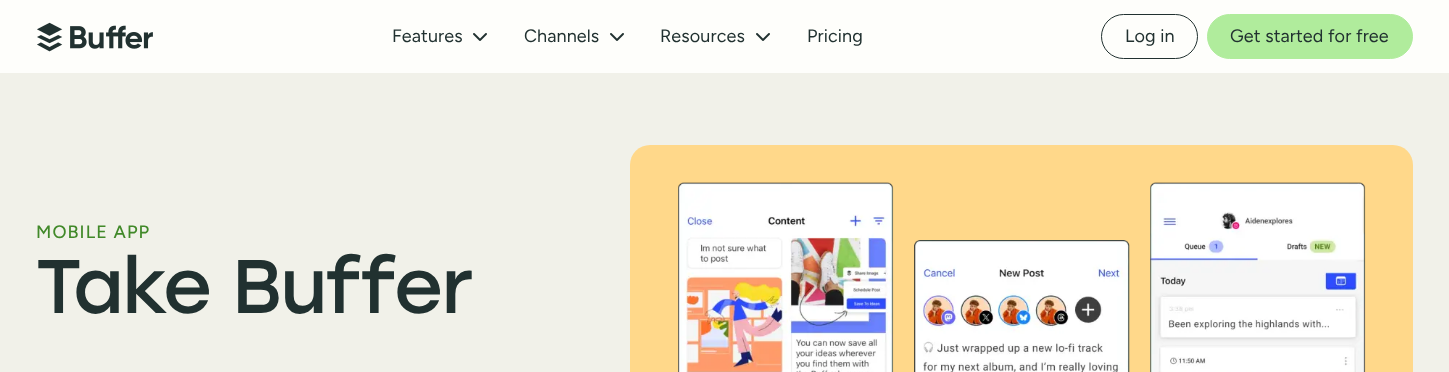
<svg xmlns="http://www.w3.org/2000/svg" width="1449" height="372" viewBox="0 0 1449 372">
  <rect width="100%" height="100%" fill="rgb(254,254,251)"/>
  <image x="37" y="22" width="116" height="30" href="pic1.png"/>
  <text x="392" y="42" font-family="Figtree" font-size="18" letter-spacing="0.1" fill="rgb(33,49,48)">Features</text>
  <image x="473" y="33" width="14" height="8" href="pic2.png"/>
  <text x="524" y="42" font-family="Figtree" font-size="18" letter-spacing="0.1" fill="rgb(33,49,48)">Channels</text>
  <image x="610" y="33" width="14" height="8" href="pic2.png"/>
  <text x="660" y="42" font-family="Figtree" font-size="18" letter-spacing="0.1" fill="rgb(33,49,48)">Resources</text>
  <image x="756" y="33" width="14" height="8" href="pic2.png"/>
  <text x="807" y="42" font-family="Figtree" font-size="18" letter-spacing="0.1" fill="rgb(33,49,48)">Pricing</text>
  <rect x="1101.5" y="14.5" width="96" height="44" rx="22" fill="none" stroke="rgb(33,49,48)"/>
  <text x="1125" y="42" font-family="Figtree" font-size="18" letter-spacing="0.1" fill="rgb(33,49,48)">Log in</text>
  <rect x="1207.5" y="14.5" width="205" height="44" rx="22" fill="rgb(176,236,156)" stroke="rgb(176,236,156)"/>
  <text x="1230" y="42" font-family="Figtree" font-size="18" letter-spacing="0.1" fill="rgb(33,49,48)">Get started for free</text>
  <rect x="0" y="73" width="1449" height="299" fill="rgb(241,241,233)"/>
  <text x="36" y="238" font-family="Figtree" font-size="18" font-weight="500" letter-spacing="1.1" fill="rgb(65,137,41)">MOBILE APP</text>
  <text x="36" y="313" font-family="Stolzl" font-size="75.75" letter-spacing="-1.5" fill="rgb(33,49,48)">Take Buffer</text>
  <rect x="630" y="145" width="783" height="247" rx="20" fill="rgb(255,216,138)"/>
  <image x="678" y="182" width="688" height="190" href="pic3.png"/>
</svg>
